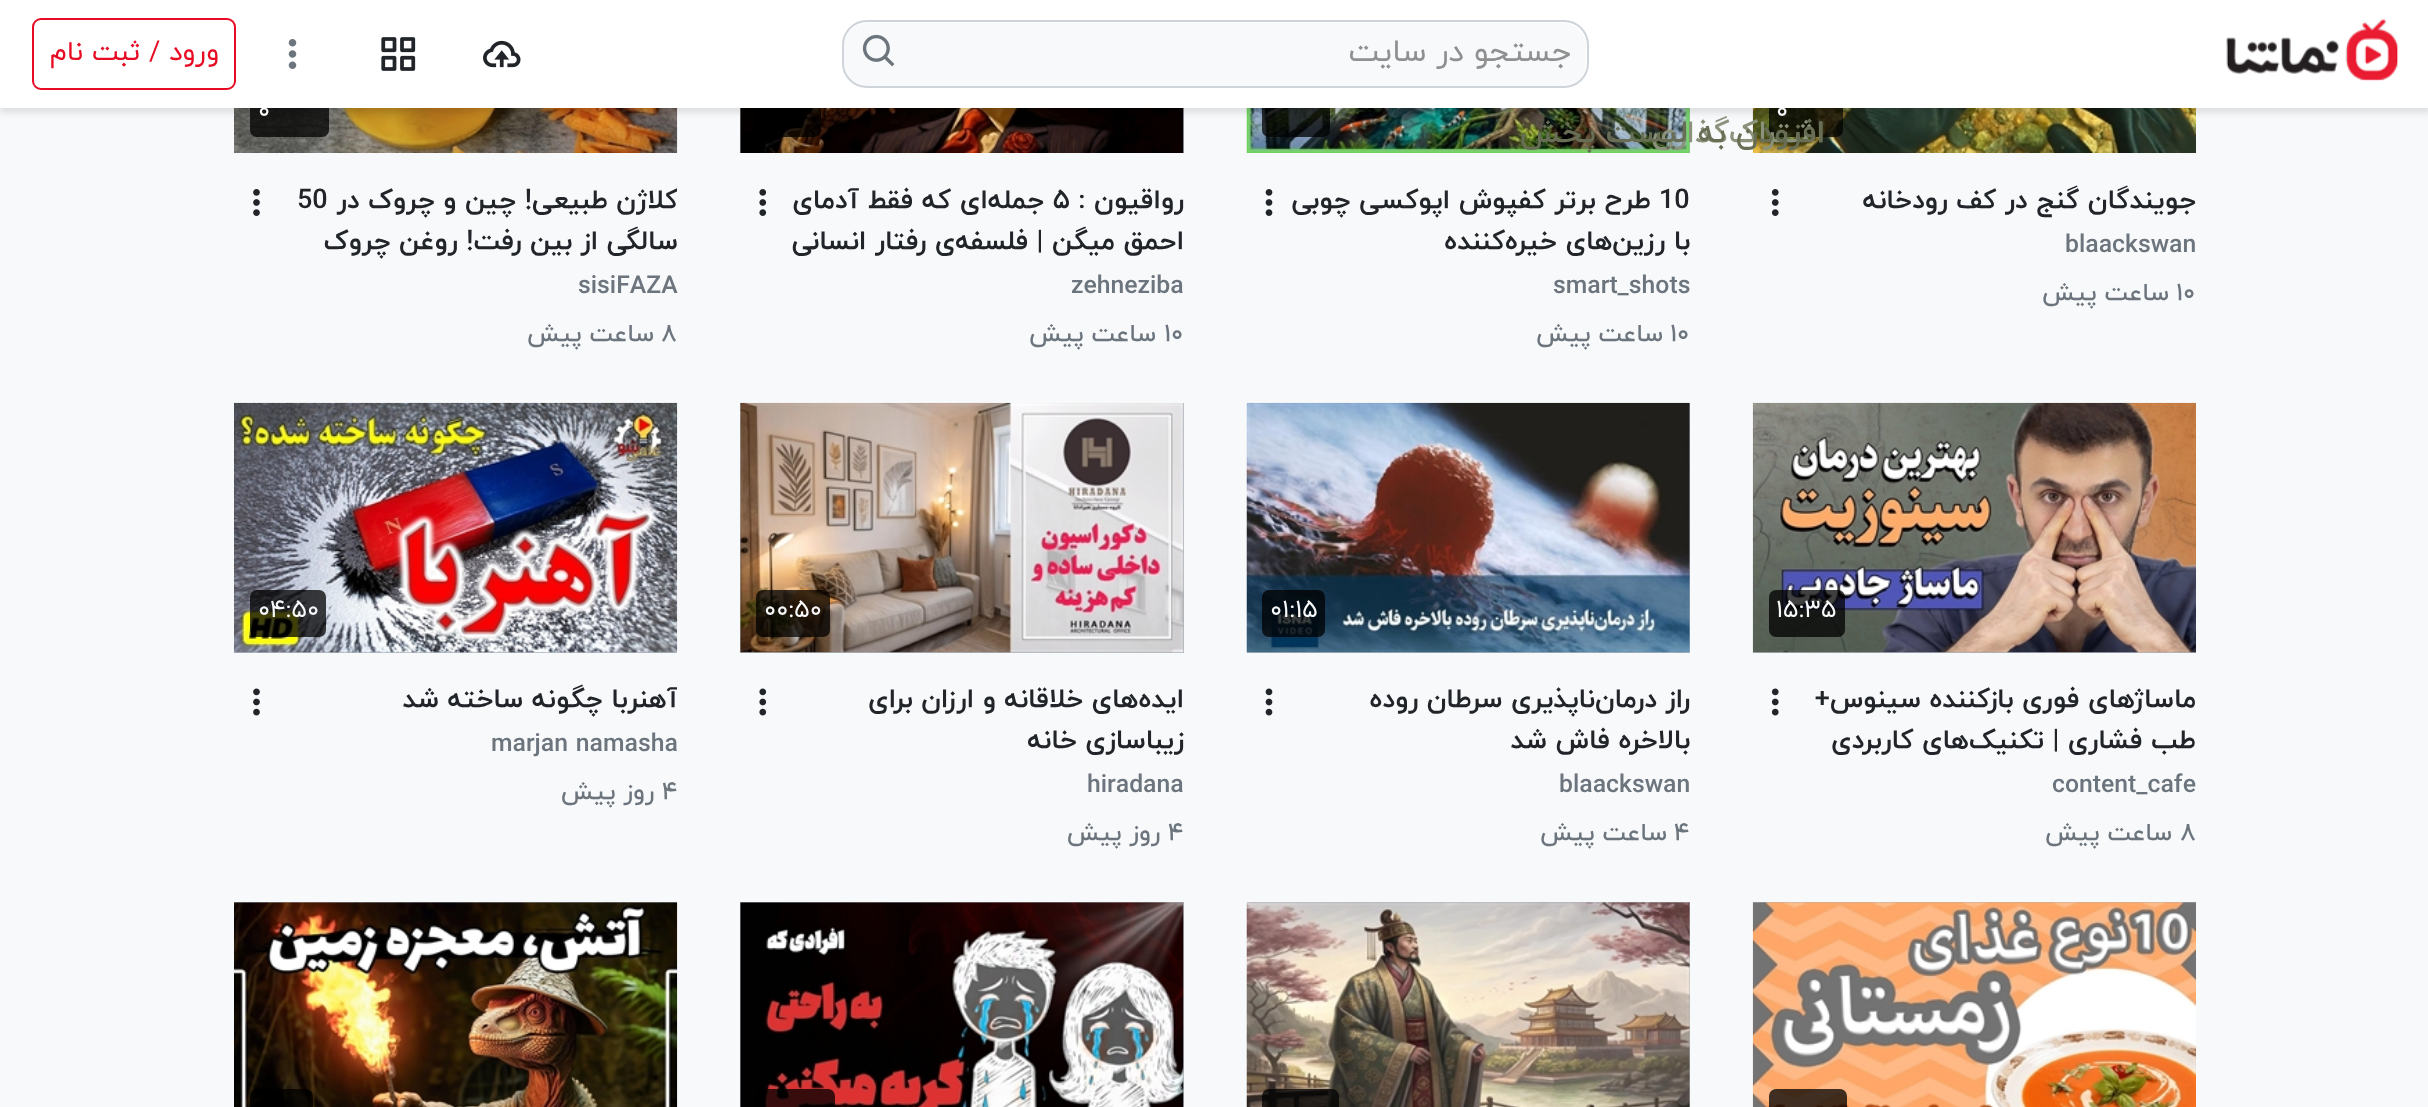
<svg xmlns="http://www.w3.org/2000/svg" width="2428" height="1107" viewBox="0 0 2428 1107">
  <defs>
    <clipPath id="clip1"><rect x="279" y="180" width="398" height="83"/></clipPath>
    <clipPath id="clip2"><rect x="403" y="680" width="274" height="40"/></clipPath>
  </defs>
  <rect width="100%" height="100%" fill="rgb(248,249,250)"/>
  <image x="1752" y="108" width="444" height="45" href="pic6.png"/>
  <rect x="1769" y="90" width="74" height="47" rx="7" fill="rgba(0,0,0,0.75)"/>
  <rect x="1689" y="108" width="1" height="45" fill="rgb(173,181,189)"/>
  <image x="1246" y="108" width="444" height="45" href="pic8.png"/>
  <rect x="1262" y="90" width="68" height="47" rx="7" fill="rgba(0,0,0,0.75)"/>
  <rect x="740" y="108" width="444" height="45" fill="rgb(173,181,189)"/>
  <image x="740" y="108" width="444" height="45" href="pic10.png"/>
  <rect x="756" y="90" width="65" height="47" rx="7" fill="rgba(0,0,0,0.75)"/>
  <image x="234" y="108" width="444" height="45" href="pic12.png"/>
  <rect x="250" y="90" width="79" height="47" rx="7" fill="rgba(0,0,0,0.75)"/>
  <rect x="0" y="5" width="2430" height="108" fill="rgba(0,0,0,0.1)" filter="blur(3px)"/>
  <g font-family="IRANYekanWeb" font-size="24.75" fill="rgb(248,249,250)">
    <text x="1776" y="118">۰</text>
    <text x="258" y="118">۰</text>
  </g>
  <rect x="0" y="0" width="2428" height="108" fill="rgb(255,255,255)"/>
  <image x="2226" y="18" width="173" height="63" href="pic1.png"/>
  <rect x="844" y="23" width="742" height="63" rx="23" fill="rgb(248,249,250)"/>
  <rect x="843" y="21" width="745" height="66" rx="24" fill="none" stroke="rgb(206,212,218)" stroke-width="2"/>
  <text x="1571" y="61" font-family="IRANYekanWeb" font-size="31.5" direction="rtl" fill="rgb(144,144,144)">جستجو در سایت</text>
  <image x="862" y="34" width="33" height="33" href="pic2.png"/>
  <image x="483" y="40" width="38" height="28" href="pic3.png"/>
  <image x="381" y="37" width="35" height="34" href="pic4.png"/>
  <image x="288" y="39" width="9" height="30" href="pic5.png"/>
  <rect x="33" y="19" width="202" height="70" rx="8" fill="none" stroke="rgb(231,12,36)" stroke-width="2"/>
  <text x="219" y="60" font-family="IRANYekanWeb" font-size="27.5" direction="rtl" fill="rgb(231,12,36)">ورود / ثبت نام</text>
  <text x="2196" y="208" font-family="IRANYekanWeb" font-size="27" font-weight="bold" direction="rtl" fill="rgb(33,37,41)">جویندگان گنج در کف رودخانه</text>
  <image x="1771" y="189" width="8" height="27" href="pic7.png"/>
  <g font-family="IRANYekanWeb" font-size="24.75" font-weight="500" fill="rgb(108,117,125)">
    <text x="2065" y="252">blaackswan</text>
    <text x="2176" y="300">۱۰</text>
  </g>
  <text x="2169" y="300" font-family="IRANYekanWeb" font-size="24.75" font-weight="500" direction="rtl" fill="rgb(108,117,125)">ساعت پیش</text>
  <text x="1659" y="208" font-family="IRANYekanWeb" font-size="27" font-weight="bold" fill="rgb(33,37,41)">10</text>
  <g font-family="IRANYekanWeb" font-size="27" font-weight="bold" direction="rtl" fill="rgb(33,37,41)">
    <text x="1651" y="208">طرح برتر کفپوش اپوکسی چوبی</text>
    <text x="1690" y="249">با رزین‌های خیره‌کننده</text>
  </g>
  <image x="1265" y="189" width="8" height="27" href="pic9.png"/>
  <g font-family="IRANYekanWeb" font-size="24.75" font-weight="500" fill="rgb(108,117,125)">
    <text x="1553" y="293">smart_shots</text>
    <text x="1670" y="341">۱۰</text>
  </g>
  <text x="1663" y="341" font-family="IRANYekanWeb" font-size="24.75" font-weight="500" direction="rtl" fill="rgb(108,117,125)">ساعت پیش</text>
  <text x="1184" y="208" font-family="IRANYekanWeb" font-size="27" font-weight="bold" direction="rtl" fill="rgb(33,37,41)">رواقیون :</text>
  <text x="1053" y="208" font-family="IRANYekanWeb" font-size="27" font-weight="bold" fill="rgb(33,37,41)">۵</text>
  <g font-family="IRANYekanWeb" font-size="27" font-weight="bold" direction="rtl" fill="rgb(33,37,41)">
    <text x="1044" y="208">جمله‌ای که فقط آدمای</text>
    <text x="1184" y="249">احمق میگن | فلسفه‌ی رفتار انسانی</text>
  </g>
  <image x="759" y="189" width="8" height="27" href="pic11.png"/>
  <g font-family="IRANYekanWeb" font-size="24.75" font-weight="500" fill="rgb(108,117,125)">
    <text x="1071" y="293">zehneziba</text>
    <text x="1164" y="341">۱۰</text>
  </g>
  <text x="1156" y="341" font-family="IRANYekanWeb" font-size="24.75" font-weight="500" direction="rtl" fill="rgb(108,117,125)">ساعت پیش</text>
  <g clip-path="url(#clip1)">
    <text x="678" y="208" font-family="IRANYekanWeb" font-size="27" font-weight="bold" direction="rtl" fill="rgb(33,37,41)">کلاژن طبیعی! چین و چروک در</text>
  </g>
  <text x="297" y="208" font-family="IRANYekanWeb" font-size="27" font-weight="bold" fill="rgb(33,37,41)">50</text>
  <text x="678" y="249" font-family="IRANYekanWeb" font-size="27" font-weight="bold" direction="rtl" fill="rgb(33,37,41)">سالگی از بین رفت! روغن چروک</text>
  <image x="253" y="189" width="7" height="27" href="pic13.png"/>
  <g font-family="IRANYekanWeb" font-size="24.75" font-weight="500" fill="rgb(108,117,125)">
    <text x="578" y="293">sisiFAZA</text>
    <text x="661" y="341">۸</text>
  </g>
  <text x="654" y="341" font-family="IRANYekanWeb" font-size="24.75" font-weight="500" direction="rtl" fill="rgb(108,117,125)">ساعت پیش</text>
  <rect x="1753" y="652" width="443" height="1" fill="rgb(173,181,189)"/>
  <image x="1752" y="402" width="444" height="251" href="pic14.png"/>
  <rect x="1769" y="590" width="76" height="47" rx="7" fill="rgba(0,0,0,0.75)"/>
  <text x="1776" y="617" font-family="IRANYekanWeb" font-size="24.75" fill="rgb(248,249,250)">۱۵:۳۵</text>
  <g font-family="IRANYekanWeb" font-size="27" font-weight="bold" direction="rtl" fill="rgb(33,37,41)">
    <text>
      <tspan x="2196" y="707">ماساژهای فوری بازکننده سینوس+</tspan>
      <tspan x="2196" y="748">طب فشاری | تکنیک‌های کاربردی</tspan>
    </text>
  </g>
  <image x="1771" y="688" width="8" height="28" href="pic15.png"/>
  <g font-family="IRANYekanWeb" font-size="24.75" font-weight="500" fill="rgb(108,117,125)">
    <text x="2052" y="792">content_cafe</text>
    <text x="2180" y="840">۸</text>
  </g>
  <text x="2172" y="840" font-family="IRANYekanWeb" font-size="24.75" font-weight="500" direction="rtl" fill="rgb(108,117,125)">ساعت پیش</text>
  <rect x="1247" y="403" width="443" height="250" fill="rgb(173,181,189)"/>
  <image x="1246" y="402" width="444" height="251" href="pic16.png"/>
  <rect x="1262" y="590" width="63" height="47" rx="7" fill="rgba(0,0,0,0.75)"/>
  <text x="1270" y="617" font-family="IRANYekanWeb" font-size="24.75" fill="rgb(248,249,250)">۰۱:۱۵</text>
  <g font-family="IRANYekanWeb" font-size="27" font-weight="bold" direction="rtl" fill="rgb(33,37,41)">
    <text>
      <tspan x="1690" y="707">راز درمان‌ناپذیری سرطان روده</tspan>
      <tspan x="1690" y="748">بالاخره فاش شد</tspan>
    </text>
  </g>
  <image x="1265" y="688" width="8" height="28" href="pic17.png"/>
  <g font-family="IRANYekanWeb" font-size="24.75" font-weight="500" fill="rgb(108,117,125)">
    <text x="1559" y="792">blaackswan</text>
    <text x="1674" y="840">۴</text>
  </g>
  <text x="1667" y="840" font-family="IRANYekanWeb" font-size="24.75" font-weight="500" direction="rtl" fill="rgb(108,117,125)">ساعت پیش</text>
  <rect x="740" y="403" width="444" height="250" fill="rgb(173,181,189)"/>
  <image x="740" y="402" width="444" height="251" href="pic18.png"/>
  <rect x="756" y="590" width="74" height="47" rx="7" fill="rgba(0,0,0,0.75)"/>
  <text x="764" y="617" font-family="IRANYekanWeb" font-size="24.75" fill="rgb(248,249,250)">۰۰:۵۰</text>
  <g font-family="IRANYekanWeb" font-size="27" font-weight="bold" direction="rtl" fill="rgb(33,37,41)">
    <text>
      <tspan x="1184" y="707">ایده‌های خلاقانه و ارزان برای</tspan>
      <tspan x="1184" y="748">زیباسازی خانه</tspan>
    </text>
  </g>
  <image x="759" y="688" width="8" height="28" href="pic19.png"/>
  <g font-family="IRANYekanWeb" font-size="24.75" font-weight="500" fill="rgb(108,117,125)">
    <text x="1087" y="792">hiradana</text>
    <text x="1168" y="840">۴</text>
  </g>
  <text x="1160" y="840" font-family="IRANYekanWeb" font-size="24.75" font-weight="500" direction="rtl" fill="rgb(108,117,125)">روز پیش</text>
  <rect x="234" y="652" width="443" height="1" fill="rgb(173,181,189)"/>
  <image x="234" y="402" width="444" height="251" href="pic20.png"/>
  <rect x="250" y="590" width="76" height="47" rx="7" fill="rgba(0,0,0,0.75)"/>
  <text x="258" y="617" font-family="IRANYekanWeb" font-size="24.75" fill="rgb(248,249,250)">۰۴:۵۰</text>
  <g clip-path="url(#clip2)">
    <text x="678" y="707" font-family="IRANYekanWeb" font-size="27" font-weight="bold" direction="rtl" fill="rgb(33,37,41)">آهنربا چگونه ساخته شد</text>
  </g>
  <image x="253" y="688" width="7" height="28" href="pic21.png"/>
  <g font-family="IRANYekanWeb" font-size="24.75" font-weight="500" fill="rgb(108,117,125)">
    <text x="491" y="751">marjan namasha</text>
    <text x="662" y="799">۴</text>
  </g>
  <text x="654" y="799" font-family="IRANYekanWeb" font-size="24.75" font-weight="500" direction="rtl" fill="rgb(108,117,125)">روز پیش</text>
  <rect x="1753" y="902" width="443" height="1" fill="rgb(173,181,189)"/>
  <image x="1752" y="902" width="444" height="205" href="pic22.png"/>
  <rect x="1769" y="1089" width="78" height="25" rx="7" fill="rgba(0,0,0,0.75)"/>
  <rect x="1247" y="902" width="443" height="205" fill="rgb(173,181,189)"/>
  <image x="1246" y="902" width="444" height="205" href="pic23.png"/>
  <rect x="1262" y="1089" width="77" height="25" rx="7" fill="rgba(0,0,0,0.75)"/>
  <rect x="740" y="902" width="444" height="205" fill="rgb(173,181,189)"/>
  <image x="740" y="902" width="444" height="205" href="pic24.png"/>
  <rect x="756" y="1089" width="79" height="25" rx="7" fill="rgba(0,0,0,0.75)"/>
  <rect x="234" y="902" width="443" height="1" fill="rgb(173,181,189)"/>
  <image x="234" y="902" width="444" height="205" href="pic25.png"/>
  <rect x="250" y="1089" width="63" height="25" rx="7" fill="rgba(0,0,0,0.75)"/>
  <text x="1825" y="142" font-family="IRANYekanWeb" font-size="31.5" font-weight="500" direction="rtl" fill="rgb(138,146,123)">اشتراک‌گذاری</text>
  <text x="1825" y="142" font-family="IRANYekanWeb" font-size="31.5" font-weight="500" direction="rtl" fill="rgb(103,110,85)">افزودن به لیست پخش</text>
</svg>
